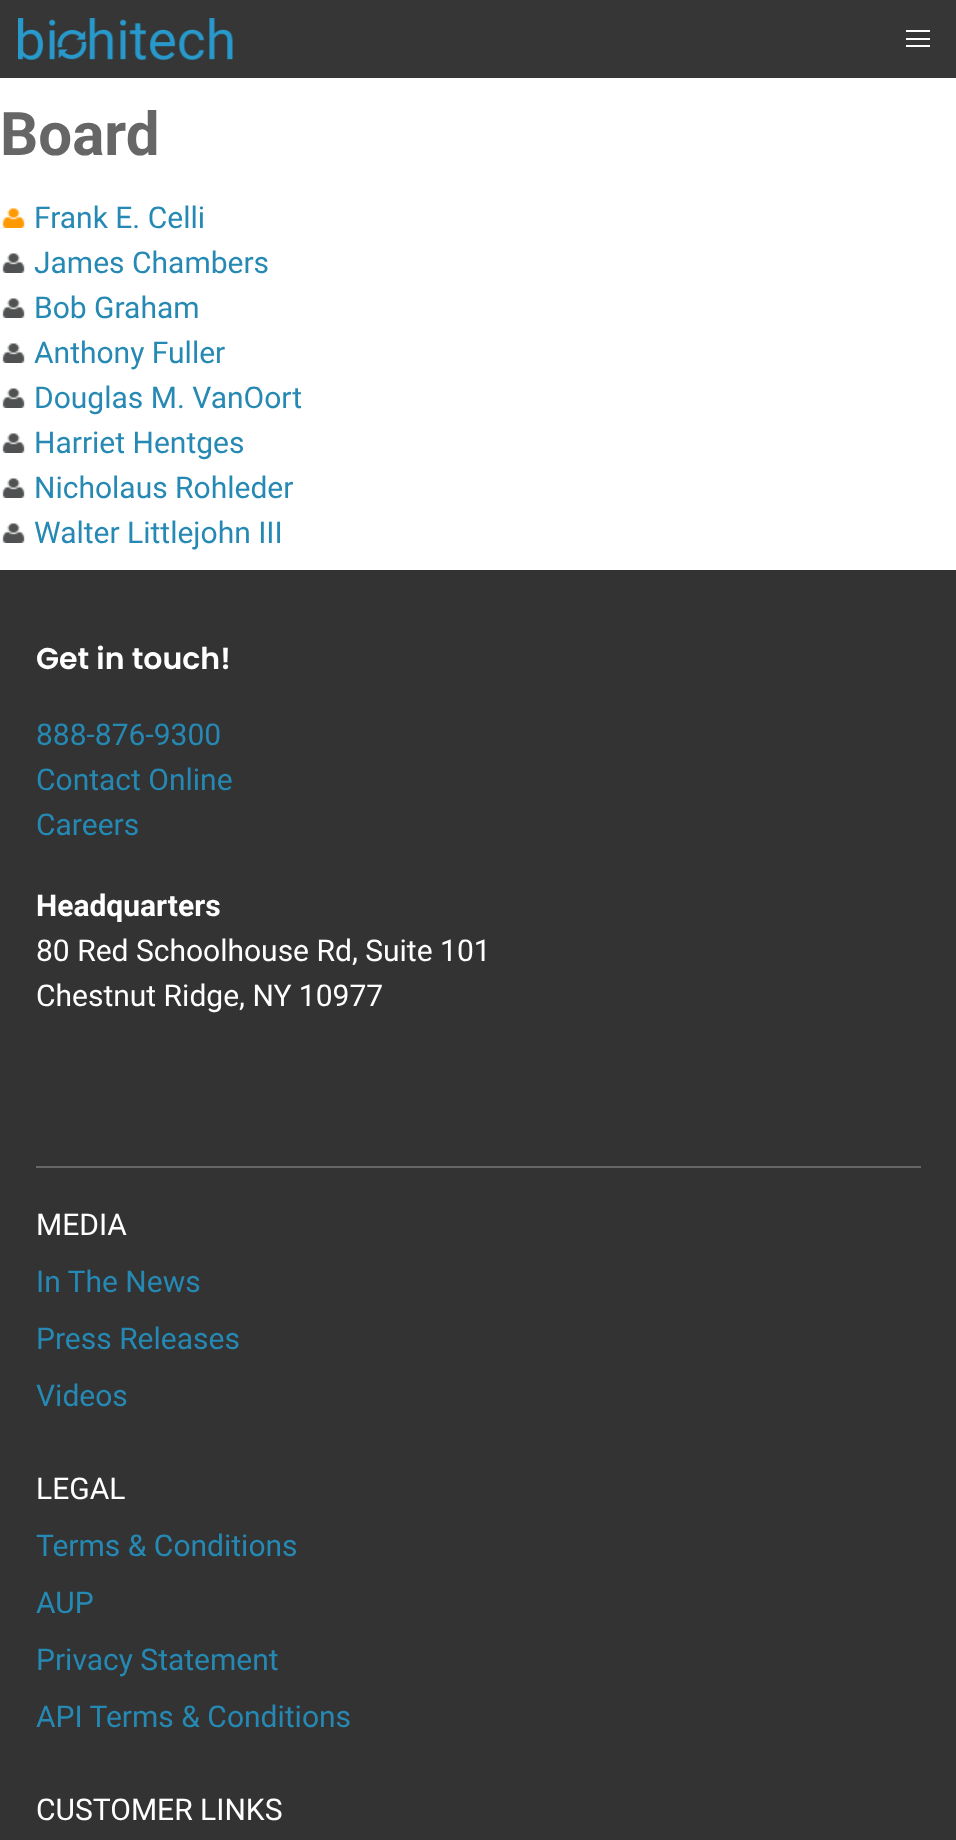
<svg xmlns="http://www.w3.org/2000/svg" width="956" height="1840" viewBox="0 0 956 1840">
  <rect width="100%" height="100%" fill="rgb(255,255,255)"/>
  <rect x="0" y="0" width="956" height="78" fill="rgb(54,54,54)"/>
  <image x="18" y="18" width="215" height="42" href="pic1.png"/>
  <rect x="906" y="30" width="24" height="2" fill="rgb(255,255,255)"/>
  <rect x="906" y="38" width="24" height="2" fill="rgb(255,255,255)"/>
  <rect x="906" y="45" width="24" height="2" fill="rgb(255,255,255)"/>
  <text x="0" y="155" font-family="Roboto" font-size="60" font-weight="bold" fill="rgb(102,102,102)">Board</text>
  <image x="2" y="208" width="23" height="20" href="pic2.png"/>
  <text x="34" y="228" font-family="Roboto" font-size="30" fill="rgb(37,137,180)">Frank E. Celli</text>
  <image x="2" y="253" width="23" height="20" href="pic3.png"/>
  <text x="34" y="273" font-family="Roboto" font-size="30" fill="rgb(37,137,180)">James Chambers</text>
  <image x="2" y="298" width="23" height="20" href="pic3.png"/>
  <text x="34" y="318" font-family="Roboto" font-size="30" fill="rgb(37,137,180)">Bob Graham</text>
  <image x="2" y="343" width="23" height="20" href="pic3.png"/>
  <text x="34" y="363" font-family="Roboto" font-size="30" fill="rgb(37,137,180)">Anthony Fuller</text>
  <image x="2" y="388" width="23" height="20" href="pic3.png"/>
  <text x="34" y="408" font-family="Roboto" font-size="30" fill="rgb(37,137,180)">Douglas M. VanOort</text>
  <image x="2" y="433" width="23" height="20" href="pic3.png"/>
  <text x="34" y="453" font-family="Roboto" font-size="30" fill="rgb(37,137,180)">Harriet Hentges</text>
  <image x="2" y="478" width="23" height="20" href="pic3.png"/>
  <text x="34" y="498" font-family="Roboto" font-size="30" fill="rgb(37,137,180)">Nicholaus Rohleder</text>
  <image x="2" y="523" width="23" height="20" href="pic3.png"/>
  <text x="34" y="543" font-family="Roboto" font-size="30" fill="rgb(37,137,180)">Walter Littlejohn III</text>
  <rect x="0" y="570" width="956" height="1270" fill="rgb(51,51,51)"/>
  <text x="36" y="669" font-family="Poppins" font-size="30" font-weight="600" fill="rgb(255,255,255)">Get in touch!</text>
  <g font-family="Roboto" font-size="30" fill="rgb(37,137,180)">
    <text>
      <tspan x="36" y="745">888-876-9300</tspan>
      <tspan x="36" y="790">Contact Online</tspan>
      <tspan x="36" y="835">Careers</tspan>
    </text>
  </g>
  <text x="36" y="916" font-family="Roboto" font-size="30" font-weight="bold" fill="rgb(255,255,255)">Headquarters</text>
  <g font-family="Roboto" font-size="30" fill="rgb(255,255,255)">
    <text>
      <tspan x="36" y="961">80 Red Schoolhouse Rd, Suite 101</tspan>
      <tspan x="36" y="1006">Chestnut Ridge, NY 10977</tspan>
    </text>
  </g>
  <rect x="36" y="1166" width="885" height="2" fill="rgb(102,102,102)"/>
  <text x="36" y="1235" font-family="Roboto" font-size="30" fill="rgb(255,255,255)">MEDIA</text>
  <g font-family="Roboto" font-size="30" fill="rgb(37,137,180)">
    <text>
      <tspan x="36" y="1292">In The News</tspan>
      <tspan x="36" y="1349">Press Releases</tspan>
      <tspan x="36" y="1406">Videos</tspan>
    </text>
  </g>
  <text x="36" y="1499" font-family="Roboto" font-size="30" fill="rgb(255,255,255)">LEGAL</text>
  <g font-family="Roboto" font-size="30" fill="rgb(37,137,180)">
    <text>
      <tspan x="36" y="1556">Terms &amp; Conditions</tspan>
      <tspan x="36" y="1613">AUP</tspan>
      <tspan x="36" y="1670">Privacy Statement</tspan>
      <tspan x="36" y="1727">API Terms &amp; Conditions</tspan>
    </text>
  </g>
  <text x="36" y="1820" font-family="Roboto" font-size="30" fill="rgb(255,255,255)">CUSTOMER LINKS</text>
</svg>
